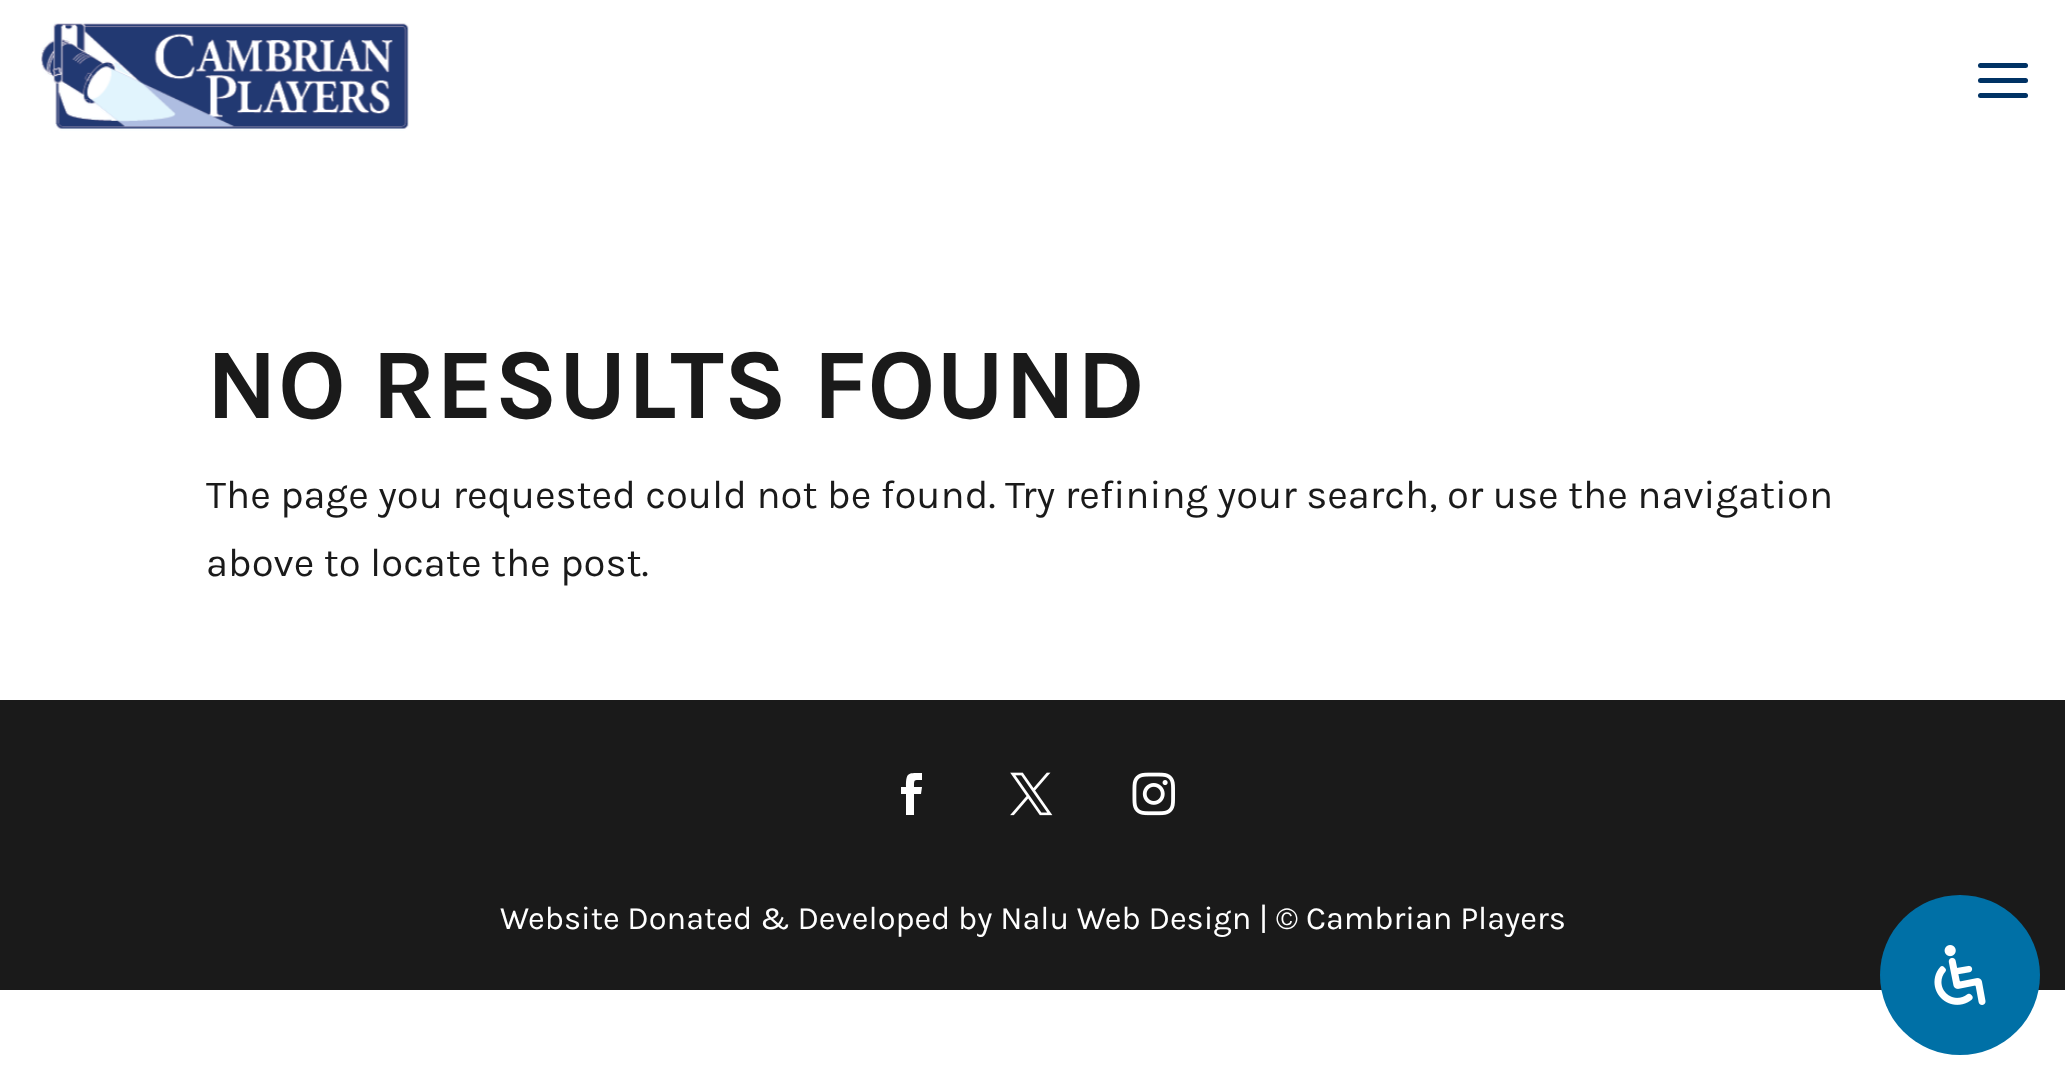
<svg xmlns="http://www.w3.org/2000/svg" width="2065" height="1079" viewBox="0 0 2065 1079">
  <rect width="100%" height="100%" fill="rgb(255,255,255)"/>
  <image x="41" y="22" width="368" height="109" href="pic1.png"/>
  <rect x="1978" y="93" width="50" height="5" rx="2.5" fill="rgb(0,50,100)"/>
  <rect x="1978" y="63" width="50" height="5" rx="2.5" fill="rgb(0,50,100)"/>
  <rect x="1978" y="78" width="50" height="5" rx="2.5" fill="rgb(0,50,100)"/>
  <text x="206" y="418" font-family="Karla" font-size="100" font-weight="bold" fill="rgb(26,26,26)">NO RESULTS FOUND</text>
  <g font-family="Karla" font-size="40" fill="rgb(26,26,26)">
    <text>
      <tspan x="206" y="508">The page you requested could not be found. Try refining your search, or use the navigation</tspan>
      <tspan x="206" y="576">above to locate the post.</tspan>
    </text>
  </g>
  <rect x="0" y="700" width="2065" height="290" fill="rgb(26,26,26)"/>
  <path d="M906 815H914V794H921L922 787H914C914 779 914 780 922 780V773C908 773 906 772 906 787H901V794H906Z" fill="rgb(255,255,255)"/>
  <image x="1010" y="772" width="43" height="44" href="pic2.png"/>
  <image x="1132" y="772" width="43" height="44" href="pic3.png"/>
  <text x="500" y="929" font-family="Karla" font-size="32.5" fill="rgb(255,255,255)">Website Donated &amp; Developed by Nalu Web Design | © Cambrian Players</text>
  <circle cx="1960" cy="975" r="80" fill="rgb(0,112,166)"/>
  <image x="1934" y="945" width="52" height="60" href="pic4.png"/>
</svg>
